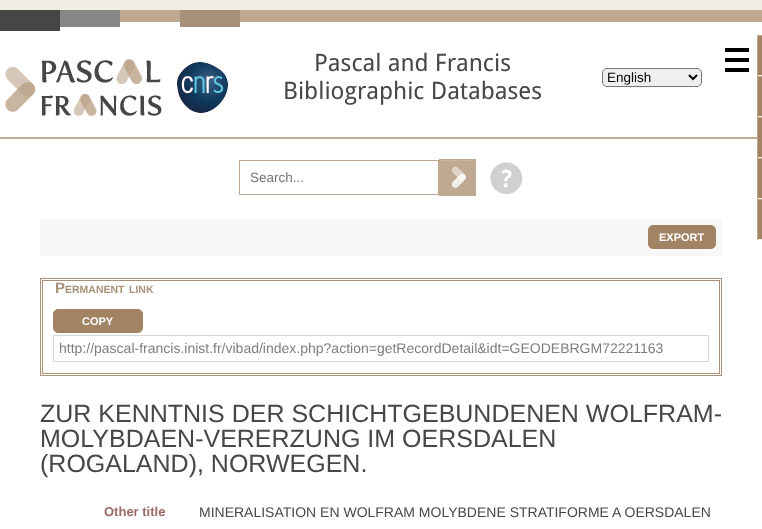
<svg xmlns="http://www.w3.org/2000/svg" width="762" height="529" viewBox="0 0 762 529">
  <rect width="100%" height="100%" fill="rgb(242,237,229)"/>
  <rect x="0" y="22" width="762" height="115" fill="rgb(255,255,255)"/>
  <rect x="240" y="10" width="522" height="12" fill="rgb(191,169,145)"/>
  <rect x="0" y="137" width="762" height="2" fill="rgb(191,169,145)"/>
  <image x="0" y="10" width="240" height="21" href="pic1.png"/>
  <image x="5" y="59" width="157" height="57" href="pic2.png"/>
  <image x="177" y="62" width="51" height="51" href="pic3.png"/>
  <g font-family="Droid Sans" font-size="24" fill="rgb(71,71,71)">
    <text x="314" y="71">Pascal and Francis</text>
    <text x="283" y="99">Bibliographic Databases</text>
  </g>
  <rect x="602.5" y="68.5" width="99" height="18" rx="4.5" fill="rgb(239,239,239)" stroke="rgb(118,118,118)"/>
  <path d="M689 75L693 79L697 75" fill="none" stroke="rgb(0,0,0)" stroke-width="2"/>
  <text x="607" y="82" font-family="Liberation Sans" font-size="13.5" fill="rgb(0,0,0)">English</text>
  <rect x="725" y="68" width="24" height="4" fill="rgb(0,0,0)"/>
  <rect x="725" y="58" width="24" height="4" fill="rgb(0,0,0)"/>
  <rect x="725" y="48" width="24" height="4" fill="rgb(0,0,0)"/>
  <rect x="0" y="139" width="762" height="390" fill="rgb(255,255,255)"/>
  <rect x="758" y="35" width="4" height="205" fill="rgb(162,132,100)"/>
  <rect x="757" y="35" width="5" height="1" fill="rgb(191,169,145)"/>
  <rect x="757" y="75" width="5" height="1" fill="rgb(242,237,229)"/>
  <rect x="757" y="35" width="1" height="41" fill="rgb(191,169,145)"/>
  <rect x="757" y="76" width="5" height="1" fill="rgb(191,169,145)"/>
  <rect x="757" y="116" width="5" height="1" fill="rgb(242,237,229)"/>
  <rect x="757" y="76" width="1" height="41" fill="rgb(191,169,145)"/>
  <rect x="757" y="117" width="5" height="1" fill="rgb(191,169,145)"/>
  <rect x="757" y="157" width="5" height="1" fill="rgb(242,237,229)"/>
  <rect x="757" y="117" width="1" height="41" fill="rgb(191,169,145)"/>
  <rect x="757" y="158" width="5" height="1" fill="rgb(191,169,145)"/>
  <rect x="757" y="198" width="5" height="1" fill="rgb(242,237,229)"/>
  <rect x="757" y="158" width="1" height="41" fill="rgb(191,169,145)"/>
  <rect x="757" y="199" width="5" height="1" fill="rgb(191,169,145)"/>
  <rect x="757" y="239" width="5" height="1" fill="rgb(242,237,229)"/>
  <rect x="757" y="199" width="1" height="41" fill="rgb(191,169,145)"/>
  <rect x="239.5" y="160.5" width="199" height="34" fill="none" stroke="rgb(191,169,145)"/>
  <text x="250" y="182" font-family="Liberation Sans" font-size="13.5" fill="rgb(117,117,117)">Search...</text>
  <image x="440" y="160" width="35" height="35" href="pic4.png"/>
  <rect x="439.5" y="159.5" width="36" height="36" fill="none" stroke="rgb(191,169,145)"/>
  <image x="490" y="162" width="33" height="33" href="pic5.png"/>
  <rect x="40" y="219" width="682" height="37" fill="rgb(247,247,247)"/>
  <rect x="648.5" y="225.5" width="67" height="23" rx="4.5" fill="rgb(162,132,100)" stroke="rgb(162,132,100)"/>
  <text x="659" y="241" font-family="Liberation Sans" font-size="11" font-weight="bold" fill="rgb(255,255,255)">EXPORT</text>
  <rect x="40.5" y="278.5" width="681" height="97" fill="none" stroke="rgb(168,145,120)"/>
  <rect x="42.5" y="280.5" width="677" height="93" fill="none" stroke="rgb(168,145,120)"/>
  <text x="55" y="293" font-family="Liberation Sans" font-size="15" font-weight="bold" fill="rgb(168,145,120)">P</text>
  <g font-family="Liberation Sans" font-size="10.5" font-weight="bold" fill="rgb(168,145,120)">
    <text x="65" y="293">ERMANENT</text>
    <text x="129" y="293">LINK</text>
  </g>
  <rect x="53.5" y="309.5" width="89" height="23" rx="4.5" fill="rgb(162,132,100)" stroke="rgb(162,132,100)"/>
  <text x="82" y="325" font-family="Liberation Sans" font-size="11" font-weight="bold" fill="rgb(255,255,255)">COPY</text>
  <rect x="53.5" y="335.5" width="655" height="26" fill="none" stroke="rgb(216,216,216)"/>
  <text x="59" y="353" font-family="Liberation Sans" font-size="14" fill="rgb(126,126,128)">http://pascal-francis.inist.fr/vibad/index.php?action=getRecordDetail&amp;idt=GEODEBRGM72221163</text>
  <g font-family="Liberation Sans" font-size="25" fill="rgb(71,71,71)">
    <text>
      <tspan x="40" y="422">ZUR KENNTNIS DER SCHICHTGEBUNDENEN WOLFRAM-</tspan>
      <tspan x="40" y="447">MOLYBDAEN-VERERZUNG IM OERSDALEN</tspan>
      <tspan x="40" y="472">(ROGALAND), NORWEGEN.</tspan>
    </text>
  </g>
  <text x="104" y="516" font-family="Liberation Sans" font-size="13" font-weight="bold" fill="rgb(157,105,105)">Other title</text>
  <text x="199" y="517" font-family="Liberation Sans" font-size="14" fill="rgb(71,71,71)">MINERALISATION EN WOLFRAM MOLYBDENE STRATIFORME A OERSDALEN</text>
</svg>
